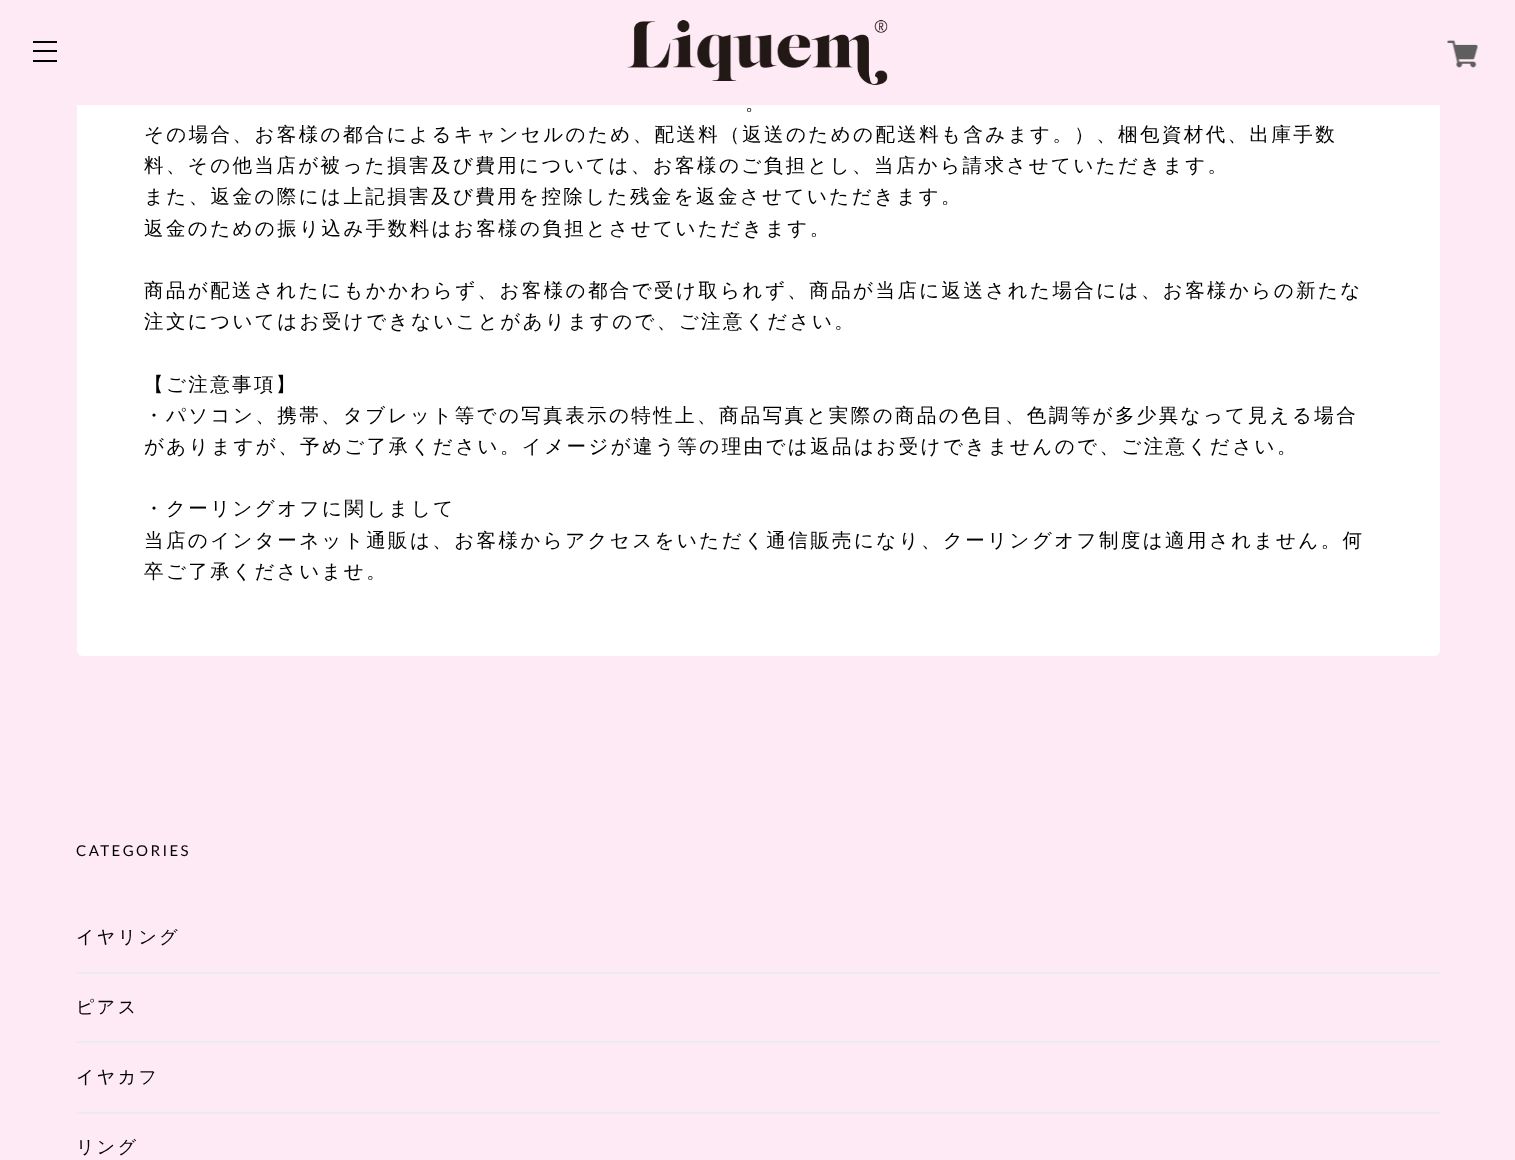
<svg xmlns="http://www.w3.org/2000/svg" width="1515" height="1160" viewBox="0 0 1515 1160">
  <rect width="100%" height="100%" fill="rgb(254,234,244)"/>
  <rect x="77" y="-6" width="1363" height="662" rx="6" fill="rgb(255,255,255)"/>
  <rect x="77" y="0" width="1363" height="105" fill="rgb(254,234,244)"/>
  <rect x="33" y="41" width="24" height="2" fill="rgb(0,0,0)"/>
  <rect x="33" y="50" width="24" height="2" fill="rgb(0,0,0)"/>
  <rect x="33" y="60" width="24" height="2" fill="rgb(0,0,0)"/>
  <image x="627" y="20" width="261" height="65" href="pic1.png"/>
  <image x="1447" y="40" width="31" height="28" href="pic2.png"/>
  <g font-family="WenQuanYi Zen Hei" font-size="19.5" font-weight="500" letter-spacing="2.4" fill="rgb(0,0,0)">
    <text x="745" y="110">。</text>
    <text>
      <tspan x="144" y="141">その場合、お客様の都合によるキャンセルのため、配送料（返送のための配送料も含みます。）、梱包資材代、出庫手数</tspan>
      <tspan x="144" y="172">料、その他当店が被った損害及び費用については、お客様のご負担とし、当店から請求させていただきます。</tspan>
      <tspan x="144" y="203">また、返金の際には上記損害及び費用を控除した残金を返金させていただきます。</tspan>
      <tspan x="144" y="235">返金のための振り込み手数料はお客様の負担とさせていただきます。</tspan>
    </text>
    <text>
      <tspan x="144" y="297">商品が配送されたにもかかわらず、お客様の都合で受け取られず、商品が当店に返送された場合には、お客様からの新たな</tspan>
      <tspan x="144" y="328">注文についてはお受けできないことがありますので、ご注意ください。</tspan>
    </text>
    <text>
      <tspan x="144" y="391">【ご注意事項】</tspan>
      <tspan x="144" y="422">・パソコン、携帯、タブレット等での写真表示の特性上、商品写真と実際の商品の色目、色調等が多少異なって見える場合</tspan>
      <tspan x="144" y="453">がありますが、予めご了承ください。イメージが違う等の理由では返品はお受けできませんので、ご注意ください。</tspan>
    </text>
    <text>
      <tspan x="144" y="515">・クーリングオフに関しまして</tspan>
      <tspan x="144" y="547">当店のインターネット通販は、お客様からアクセスをいただく通信販売になり、クーリングオフ制度は適用されません。何</tspan>
      <tspan x="144" y="578">卒ご了承くださいませ。</tspan>
    </text>
  </g>
  <text x="76" y="856" font-family="Lato" font-size="15" letter-spacing="2.4" fill="rgb(0,0,0)">CATEGORIES</text>
  <rect x="77" y="972" width="1363" height="2" fill="rgb(236,236,236)"/>
  <text x="76" y="943" font-family="WenQuanYi Zen Hei" font-size="18" font-weight="500" letter-spacing="2.4" fill="rgb(0,0,0)">イヤリング</text>
  <rect x="77" y="1041" width="1363" height="2" fill="rgb(236,236,236)"/>
  <text x="76" y="1013" font-family="WenQuanYi Zen Hei" font-size="18" font-weight="500" letter-spacing="2.4" fill="rgb(0,0,0)">ピアス</text>
  <rect x="77" y="1112" width="1363" height="2" fill="rgb(236,236,236)"/>
  <g font-family="WenQuanYi Zen Hei" font-size="18" font-weight="500" letter-spacing="2.4" fill="rgb(0,0,0)">
    <text x="76" y="1083">イヤカフ</text>
    <text x="76" y="1153">リング</text>
  </g>
</svg>
